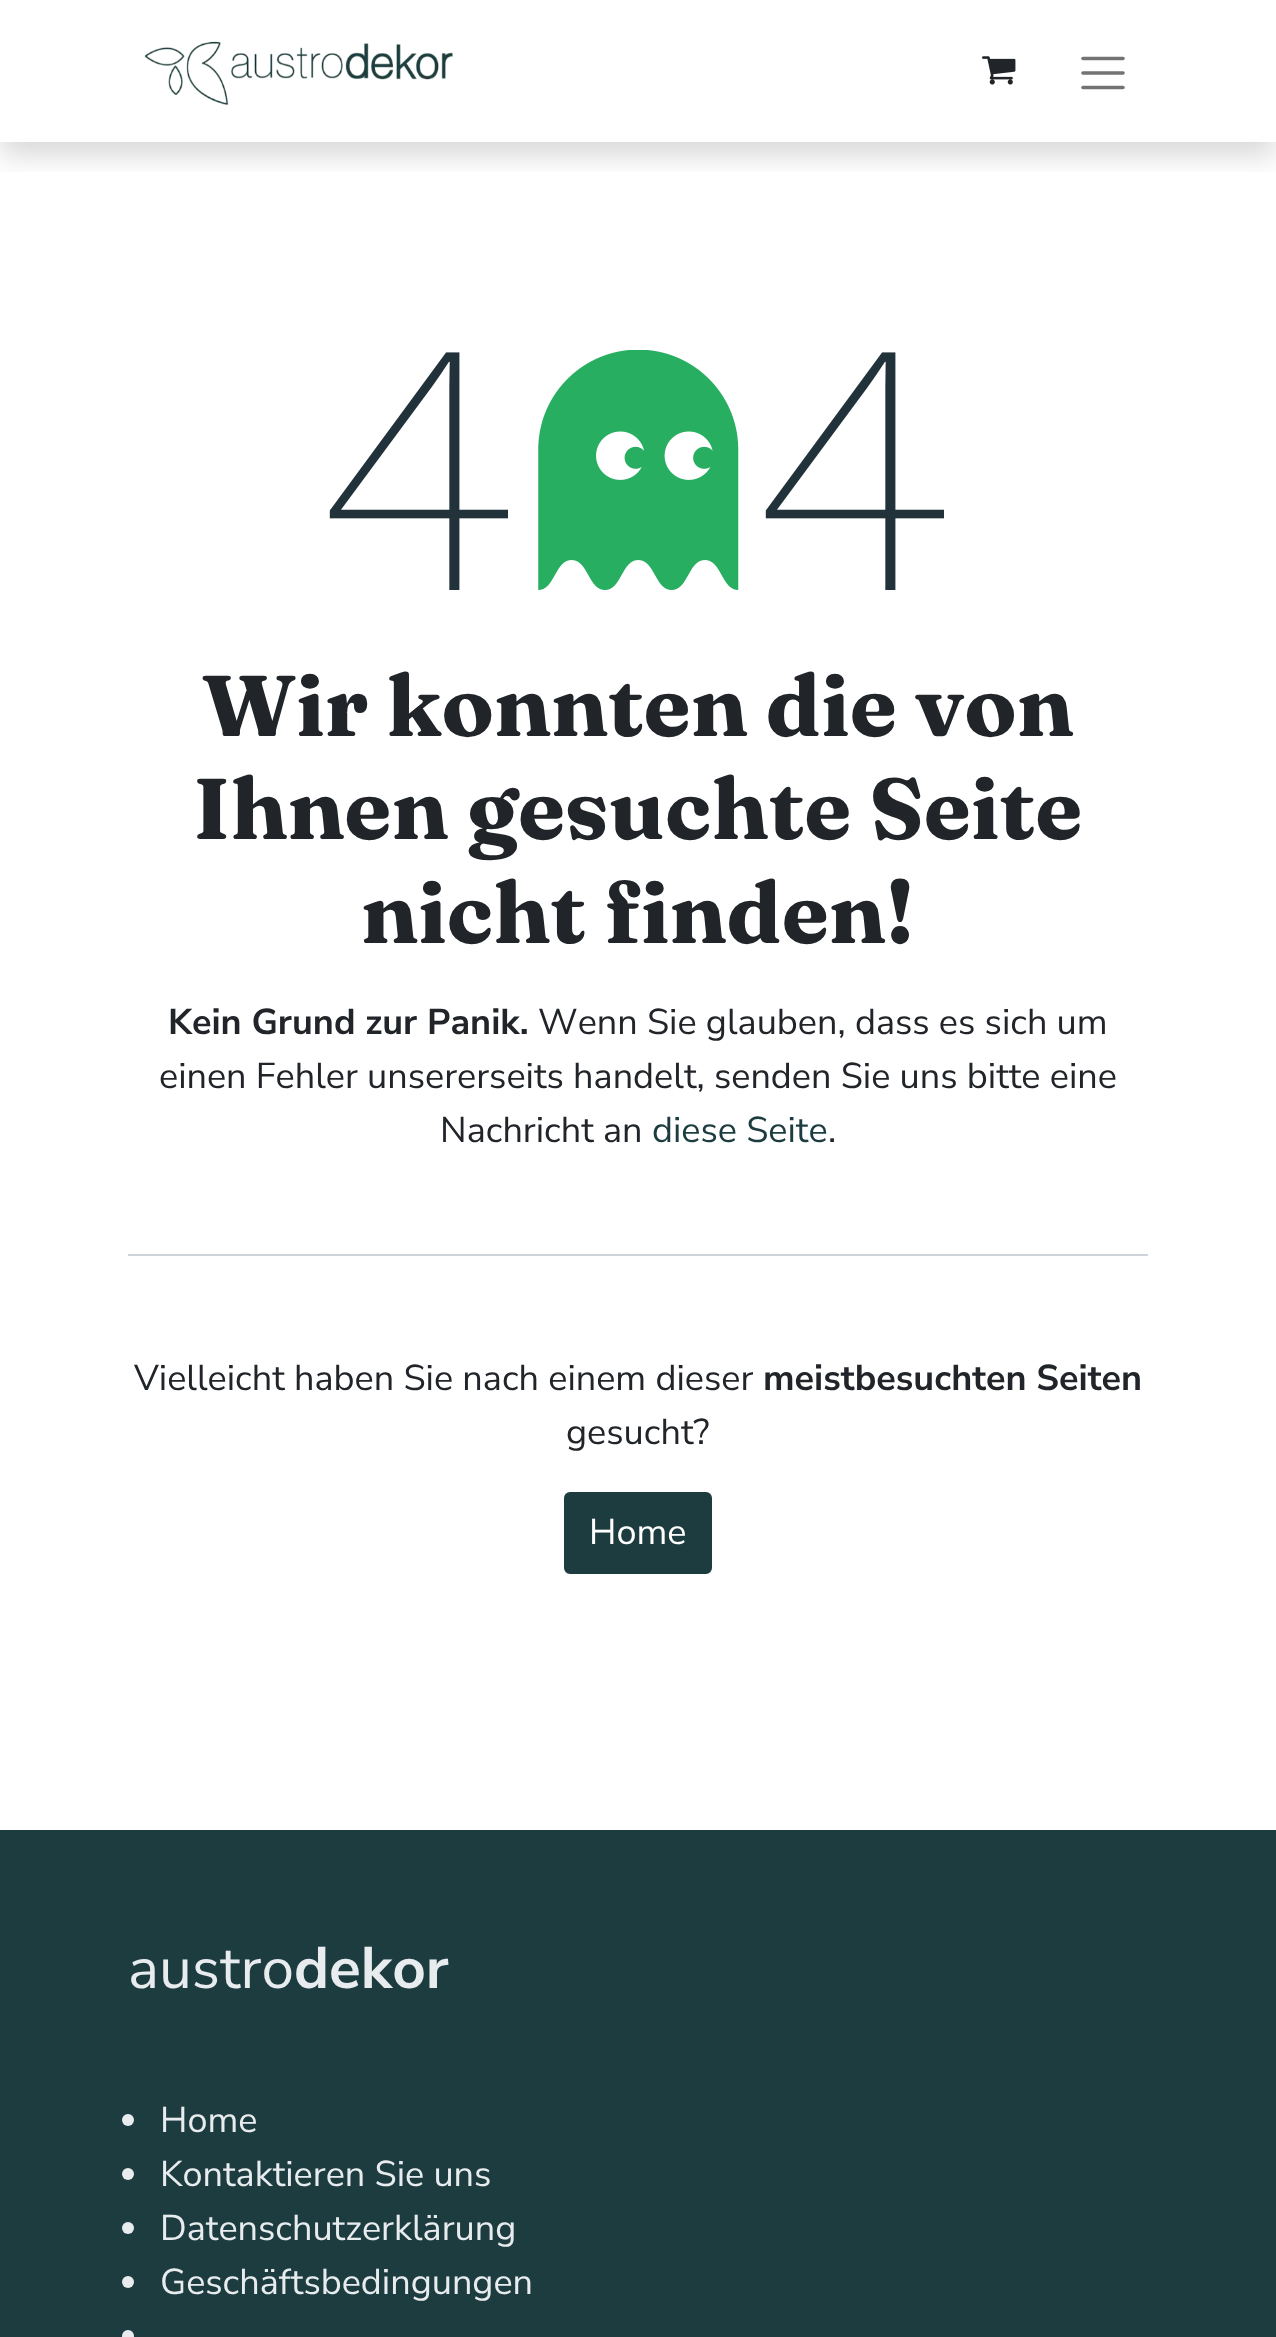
<svg xmlns="http://www.w3.org/2000/svg" width="1276" height="2337" viewBox="0 0 1276 2337">
  <style>*{font-kerning:none!important;font-variant-ligatures:none!important}</style>
  <defs>
    <clipPath id="clip1"><rect x="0" y="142" width="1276" height="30"/></clipPath>
  </defs>
  <rect width="100%" height="100%" fill="rgb(255,255,255)"/>
  <g clip-path="url(#clip1)">
    <rect x="0" y="14" width="1276" height="142" fill="rgba(0,0,0,0.15)" filter="blur(14px)"/>
  </g>
  <image x="144" y="41" width="309" height="65" href="pic1.png"/>
  <image x="982" y="56" width="34" height="29" href="pic2.png"/>
  <path d="M1083 58.5H1123M1083 73H1123M1083 87.5H1123" fill="none" stroke="rgb(115,115,115)" stroke-width="3.6" stroke-linecap="round"/>
  <image x="329" y="350" width="615" height="240" href="pic3.png"/>
  <g font-family="Fraunces" font-size="86.25" font-weight="bold" fill="rgb(33,37,41)">
    <text x="202" y="736">Wir konnten die von</text>
    <text x="193" y="839">Ihnen gesuchte Seite</text>
    <text x="361" y="943">nicht finden!</text>
  </g>
  <text x="168" y="1034" font-family="Nunito Sans" font-size="36" font-weight="bold" fill="rgb(33,37,41)">Kein Grund zur Panik.</text>
  <g font-family="Nunito Sans" font-size="36" fill="rgb(33,37,41)">
    <text x="538" y="1034">Wenn Sie glauben, dass es sich um</text>
    <text x="159" y="1088">einen Fehler unsererseits handelt, senden Sie uns bitte eine</text>
    <text x="440" y="1142">Nachricht an</text>
  </g>
  <text x="652" y="1142" font-family="Nunito Sans" font-size="36" fill="rgb(28,60,63)">diese Seite</text>
  <text x="828" y="1142" font-family="Nunito Sans" font-size="36" fill="rgb(33,37,41)">.</text>
  <rect x="128" y="1254" width="1020" height="2" fill="rgb(206,212,218)"/>
  <text x="134" y="1390" font-family="Nunito Sans" font-size="36" fill="rgb(33,37,41)">Vielleicht haben Sie nach einem dieser</text>
  <text x="763" y="1390" font-family="Nunito Sans" font-size="36" font-weight="bold" fill="rgb(33,37,41)">meistbesuchten Seiten</text>
  <text x="566" y="1444" font-family="Nunito Sans" font-size="36" fill="rgb(33,37,41)">gesucht?</text>
  <rect x="565" y="1493" width="146" height="80" rx="5" fill="rgb(28,60,63)" stroke="rgb(28,60,63)" stroke-width="2"/>
  <text x="589" y="1544" font-family="Nunito Sans" font-size="36" fill="rgb(255,255,255)">Home</text>
  <rect x="0" y="1830" width="1276" height="507" fill="rgb(28,60,63)"/>
  <text x="128" y="1988" font-family="Nunito Sans" font-size="58.5" fill="rgb(233,236,239)">austro</text>
  <text x="294" y="1988" font-family="Nunito Sans" font-size="58.5" font-weight="bold" fill="rgb(233,236,239)">dekor</text>
  <circle cx="128" cy="2120" r="6" fill="rgb(233,236,239)"/>
  <text x="160" y="2132" font-family="Nunito Sans" font-size="36" fill="rgb(233,236,239)">Home</text>
  <circle cx="128" cy="2174" r="6" fill="rgb(233,236,239)"/>
  <text x="160" y="2186" font-family="Nunito Sans" font-size="36" fill="rgb(233,236,239)">Kontaktieren Sie uns</text>
  <circle cx="128" cy="2228" r="6" fill="rgb(233,236,239)"/>
  <text x="160" y="2240" font-family="Nunito Sans" font-size="36" fill="rgb(233,236,239)">Datenschutzerklärung</text>
  <circle cx="128" cy="2282" r="6" fill="rgb(233,236,239)"/>
  <text x="160" y="2294" font-family="Nunito Sans" font-size="36" fill="rgb(233,236,239)">Geschäftsbedingungen</text>
  <circle cx="128" cy="2336" r="6" fill="rgb(233,236,239)"/>
</svg>
